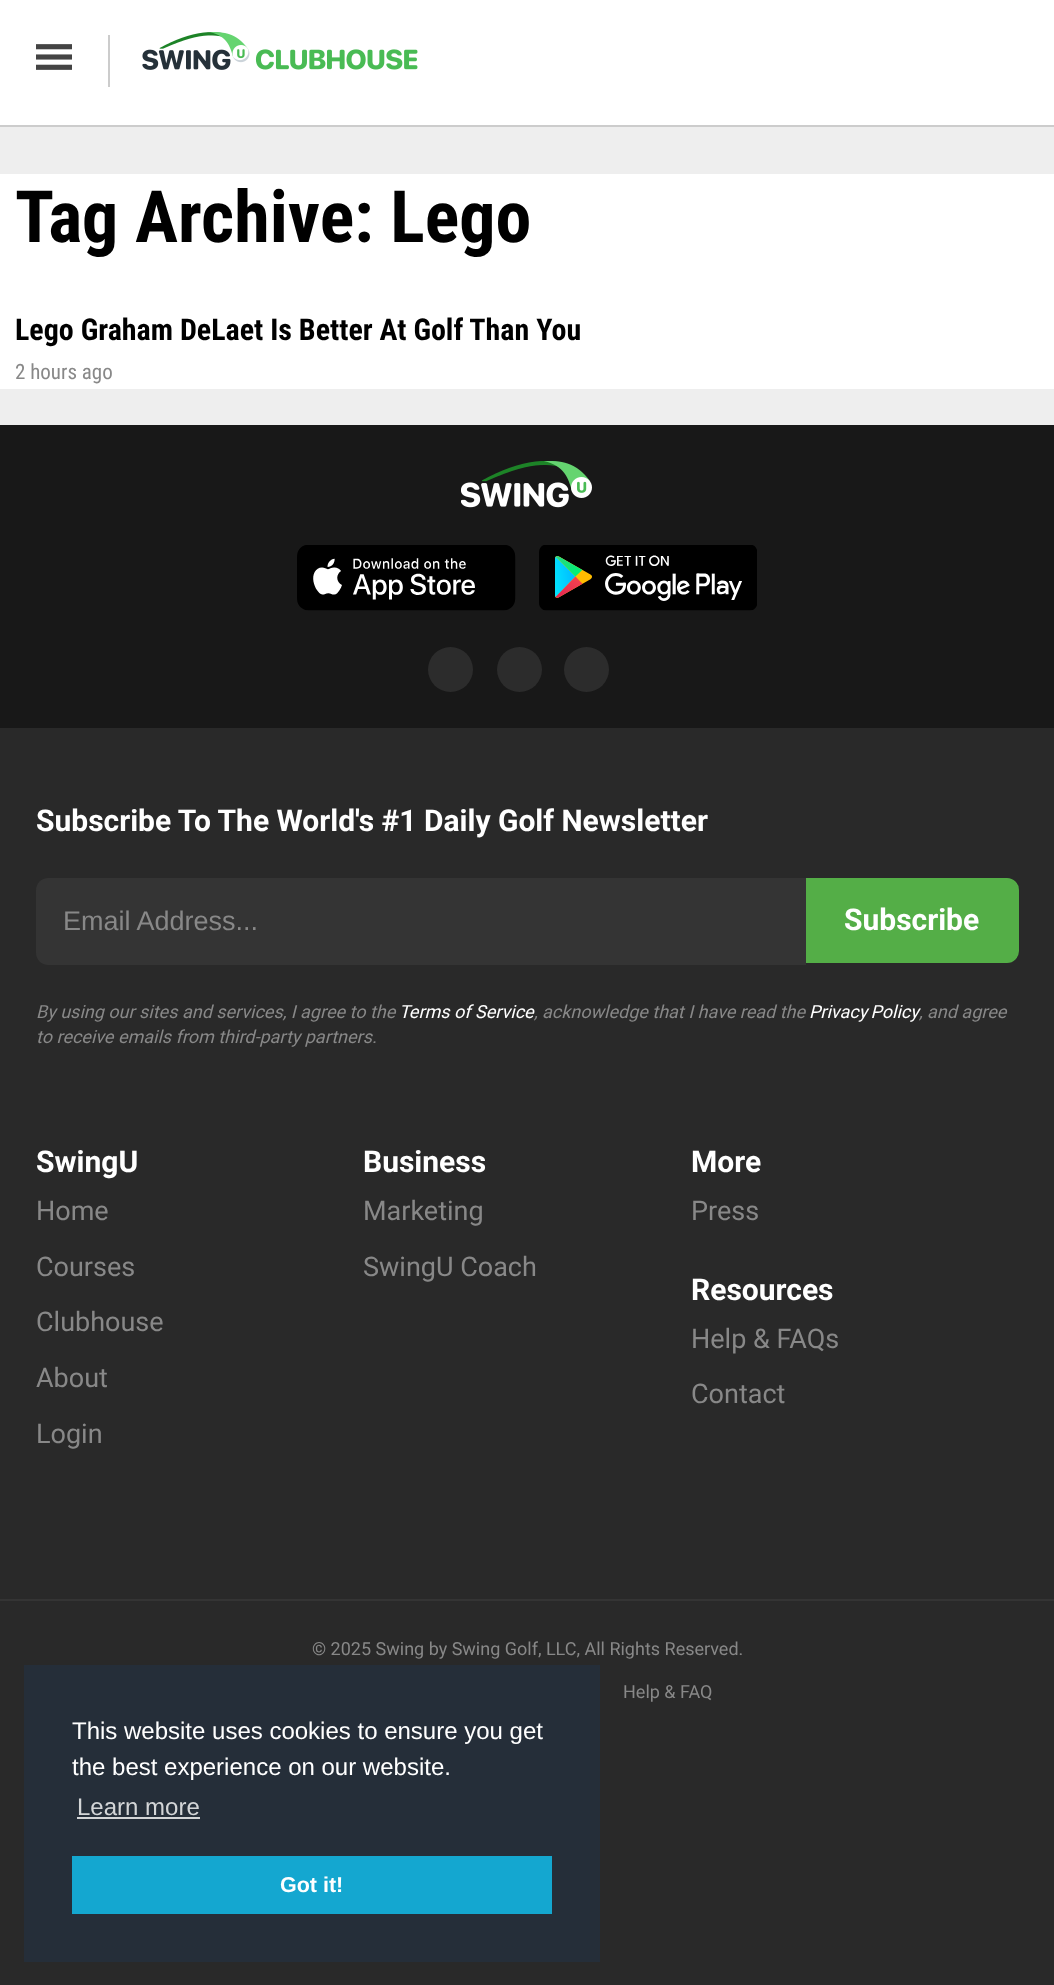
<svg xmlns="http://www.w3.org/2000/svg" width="1054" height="1985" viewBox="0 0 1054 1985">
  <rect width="100%" height="100%" fill="rgb(41,41,41)"/>
  <rect x="0" y="0" width="1054" height="125" fill="rgb(255,255,255)"/>
  <rect x="0" y="125" width="1054" height="2" fill="rgb(204,204,204)"/>
  <rect x="108" y="35" width="2" height="52" fill="rgb(204,204,204)"/>
  <image x="36" y="44" width="36" height="26" href="pic1.png"/>
  <image x="142" y="32" width="276" height="38" href="pic2.png"/>
  <rect x="0" y="127" width="1054" height="298" fill="rgb(238,238,238)"/>
  <rect x="0" y="174" width="1054" height="215" fill="rgb(255,255,255)"/>
  <text x="15" y="242" font-family="Roboto Condensed" font-size="72" font-weight="bold" fill="rgb(0,0,0)">Tag Archive: Lego</text>
  <text x="15" y="340" font-family="Roboto Condensed" font-size="30" font-weight="bold" fill="rgb(0,0,0)">Lego Graham DeLaet Is Better At Golf Than You</text>
  <text x="15" y="379" font-family="Roboto Condensed" font-size="21" fill="rgb(136,136,136)">2 hours ago</text>
  <rect x="0" y="425" width="1054" height="303" fill="rgb(24,24,24)"/>
  <image x="461" y="461" width="131" height="47" href="pic3.png"/>
  <image x="297" y="545" width="219" height="66" href="pic4.png"/>
  <image x="539" y="545" width="218" height="66" href="pic5.png"/>
  <circle cx="450.5" cy="669.5" r="22.5" fill="rgb(44,44,44)"/>
  <circle cx="519.5" cy="669.5" r="22.5" fill="rgb(44,44,44)"/>
  <circle cx="586.5" cy="669.5" r="22.5" fill="rgb(44,44,44)"/>
  <text x="36" y="831" font-family="Roboto" font-size="30" font-weight="bold" fill="rgb(255,255,255)">Subscribe To The World's #1 Daily Golf Newsletter</text>
  <path d="M48 878H806V965H48C41.5 965 36 959.5 36 953V890C36 883.5 41.5 878 48 878Z" fill="rgb(52,52,52)"/>
  <text x="63" y="930" font-family="Liberation Sans" font-size="27" fill="rgb(136,136,136)">Email Address...</text>
  <path d="M807 879H1007C1013 879 1018 884 1018 890V951C1018 957 1013 962 1007 962H807Z" fill="rgb(84,174,71)" stroke="rgb(84,174,71)" stroke-width="2"/>
  <text x="844" y="930" font-family="Roboto" font-size="30" font-weight="bold" fill="rgb(255,255,255)">Subscribe</text>
  <text x="36" y="1018" font-family="Roboto" font-size="18" font-style="italic" fill="rgb(136,136,136)">By using our sites and services, I agree to the</text>
  <text x="399" y="1018" font-family="Roboto" font-size="18" font-style="italic" fill="rgb(255,255,255)">Terms of Service</text>
  <text x="534" y="1018" font-family="Roboto" font-size="18" font-style="italic" fill="rgb(136,136,136)">, acknowledge that I have read the</text>
  <text x="809" y="1018" word-spacing="-1" font-family="Roboto" font-size="18" font-style="italic" fill="rgb(255,255,255)">Privacy Policy</text>
  <g font-family="Roboto" font-size="18" font-style="italic" fill="rgb(136,136,136)">
    <text x="919" y="1018">, and agree</text>
    <text x="36" y="1043">to receive emails from third-party partners.</text>
  </g>
  <text x="36" y="1172" font-family="Roboto" font-size="30" font-weight="bold" fill="rgb(255,255,255)">SwingU</text>
  <g font-family="Roboto" font-size="27" fill="rgb(136,136,136)">
    <text x="36" y="1220">Home</text>
    <text x="36" y="1276">Courses</text>
    <text x="36" y="1331">Clubhouse</text>
    <text x="36" y="1387">About</text>
    <text x="36" y="1443">Login</text>
  </g>
  <text x="363" y="1172" font-family="Roboto" font-size="30" font-weight="bold" fill="rgb(255,255,255)">Business</text>
  <g font-family="Roboto" font-size="27" fill="rgb(136,136,136)">
    <text x="363" y="1220">Marketing</text>
    <text x="363" y="1276">SwingU Coach</text>
  </g>
  <text x="691" y="1172" font-family="Roboto" font-size="30" font-weight="bold" fill="rgb(255,255,255)">More</text>
  <text x="691" y="1220" font-family="Roboto" font-size="27" fill="rgb(136,136,136)">Press</text>
  <text x="691" y="1300" font-family="Roboto" font-size="30" font-weight="bold" fill="rgb(255,255,255)">Resources</text>
  <g font-family="Roboto" font-size="27" fill="rgb(136,136,136)">
    <text x="691" y="1348">Help &amp; FAQs</text>
    <text x="691" y="1403">Contact</text>
  </g>
  <rect x="0" y="1599" width="1054" height="2" fill="rgb(52,52,52)"/>
  <g font-family="Roboto" font-size="18" fill="rgb(136,136,136)">
    <text x="312" y="1655">© 2025 Swing by Swing Golf, LLC, All Rights Reserved.</text>
    <text x="623" y="1698">Help &amp; FAQ</text>
  </g>
  <rect x="24" y="1665" width="576" height="297" fill="rgb(37,46,57)"/>
  <g font-family="Liberation Sans" font-size="24" fill="rgb(255,255,255)">
    <text>
      <tspan x="72" y="1739">This website uses cookies to ensure you get</tspan>
      <tspan x="72" y="1775">the best experience on our website.</tspan>
    </text>
  </g>
  <text x="77" y="1815" font-family="Liberation Sans" font-size="24" fill="rgb(211,213,215)">Learn more</text>
  <rect x="77" y="1817" width="123" height="2" fill="rgb(211,213,215)"/>
  <rect x="72" y="1856" width="480" height="58" fill="rgb(20,167,208)"/>
  <text x="280" y="1892" font-family="Liberation Sans" font-size="21.5" font-weight="bold" fill="rgb(255,255,255)">Got it!</text>
</svg>
